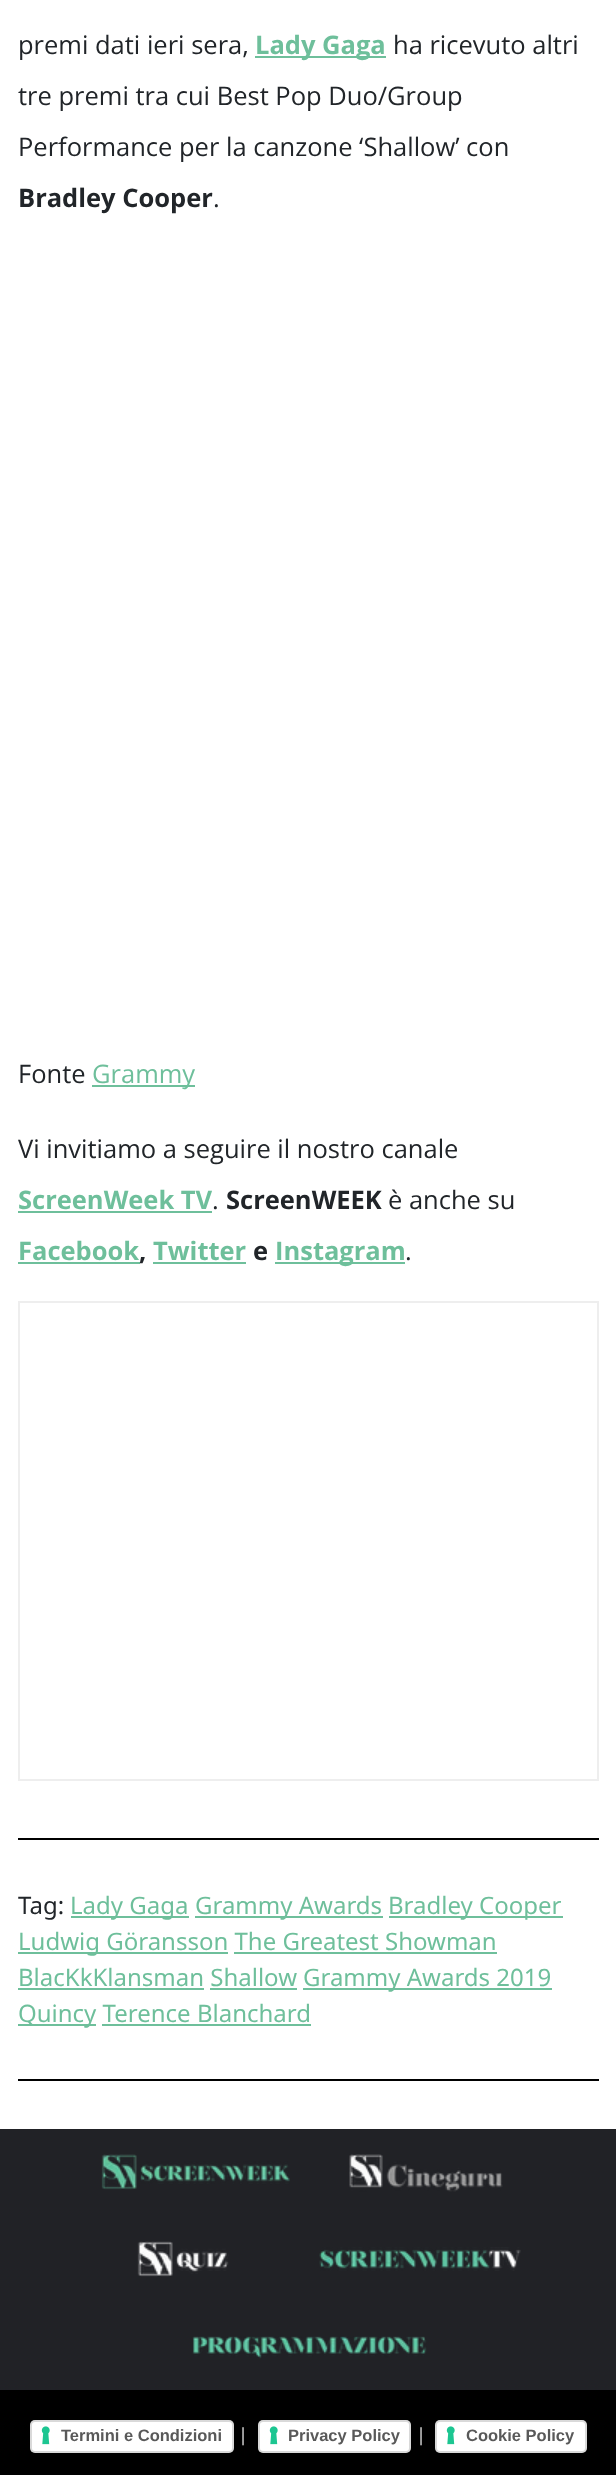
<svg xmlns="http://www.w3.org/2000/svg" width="616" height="2475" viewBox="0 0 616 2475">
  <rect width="100%" height="100%" fill="rgb(255,255,255)"/>
  <text x="18" y="54" font-family="Open Sans" font-size="25.5" fill="rgb(33,37,41)">premi dati ieri sera,</text>
  <rect x="255" y="56" width="131" height="2" fill="rgb(110,191,155)"/>
  <text x="255" y="54" font-family="Open Sans" font-size="25.5" font-weight="bold" fill="rgb(110,191,155)">Lady Gaga</text>
  <g font-family="Open Sans" font-size="25.5" fill="rgb(33,37,41)">
    <text x="393" y="54">ha ricevuto altri</text>
    <text x="18" y="105">tre premi tra cui Best Pop Duo/Group</text>
    <text x="18" y="156">Performance per la canzone ‘Shallow’ con</text>
  </g>
  <text x="18" y="207" font-family="Open Sans" font-size="25.5" font-weight="bold" fill="rgb(33,37,41)">Bradley Cooper</text>
  <g font-family="Open Sans" font-size="25.5" fill="rgb(33,37,41)">
    <text x="213" y="207">.</text>
    <text x="18" y="1083">Fonte</text>
  </g>
  <rect x="92" y="1085" width="103" height="2" fill="rgb(110,191,155)"/>
  <text x="92" y="1083" font-family="Open Sans" font-size="25.5" fill="rgb(110,191,155)">Grammy</text>
  <text x="18" y="1158" font-family="Open Sans" font-size="25.5" fill="rgb(33,37,41)">Vi invitiamo a seguire il nostro canale</text>
  <text x="18" y="1209" font-family="Open Sans" font-size="25.5" font-weight="bold" fill="rgb(110,191,155)">ScreenWeek TV</text>
  <rect x="18" y="1211" width="194" height="2" fill="rgb(110,191,155)"/>
  <text x="212" y="1209" font-family="Open Sans" font-size="25.5" fill="rgb(33,37,41)">.</text>
  <text x="226" y="1209" font-family="Open Sans" font-size="25.5" font-weight="bold" fill="rgb(33,37,41)">ScreenWEEK</text>
  <text x="388" y="1209" font-family="Open Sans" font-size="25.5" fill="rgb(33,37,41)">è anche su</text>
  <text x="18" y="1260" font-family="Open Sans" font-size="25.5" font-weight="bold" fill="rgb(110,191,155)">Facebook</text>
  <rect x="18" y="1262" width="122" height="2" fill="rgb(110,191,155)"/>
  <text x="139" y="1260" font-family="Open Sans" font-size="25.5" font-weight="bold" fill="rgb(33,37,41)">,</text>
  <rect x="153" y="1262" width="93" height="2" fill="rgb(110,191,155)"/>
  <text x="153" y="1260" font-family="Open Sans" font-size="25.5" font-weight="bold" fill="rgb(110,191,155)">Twitter</text>
  <text x="253" y="1260" font-family="Open Sans" font-size="25.5" font-weight="bold" fill="rgb(33,37,41)">e</text>
  <rect x="275" y="1262" width="130" height="2" fill="rgb(110,191,155)"/>
  <text x="275" y="1260" font-family="Open Sans" font-size="25.5" font-weight="bold" fill="rgb(110,191,155)">Instagram</text>
  <text x="405" y="1260" font-family="Open Sans" font-size="25.5" fill="rgb(33,37,41)">.</text>
  <rect x="19" y="1302" width="579" height="478" fill="none" stroke="rgb(238,238,238)" stroke-width="2"/>
  <rect x="18" y="1838" width="581" height="2" fill="rgb(0,0,0)"/>
  <rect x="18" y="2079" width="581" height="2" fill="rgb(0,0,0)"/>
  <text x="18" y="1914" font-family="Noto Sans" font-size="24" fill="rgb(33,37,41)">Tag:</text>
  <rect x="71" y="1916" width="118" height="2" fill="rgb(110,191,155)"/>
  <text x="70" y="1914" font-family="Noto Sans" font-size="24" fill="rgb(110,191,155)">Lady Gaga</text>
  <rect x="195" y="1916" width="188" height="2" fill="rgb(110,191,155)"/>
  <text x="195" y="1914" font-family="Noto Sans" font-size="24" fill="rgb(110,191,155)">Grammy Awards</text>
  <rect x="389" y="1916" width="174" height="2" fill="rgb(110,191,155)"/>
  <text x="388" y="1914" font-family="Noto Sans" font-size="24" fill="rgb(110,191,155)">Bradley Cooper</text>
  <rect x="18" y="1952" width="210" height="2" fill="rgb(110,191,155)"/>
  <text x="18" y="1950" font-family="Noto Sans" font-size="24" fill="rgb(110,191,155)">Ludwig Göransson The Greatest Showman</text>
  <rect x="234" y="1952" width="263" height="2" fill="rgb(110,191,155)"/>
  <text x="18" y="1986" font-family="Noto Sans" font-size="24" fill="rgb(110,191,155)">BlacKkKlansman Shallow</text>
  <rect x="18" y="1988" width="186" height="2" fill="rgb(110,191,155)"/>
  <rect x="303" y="1988" width="249" height="2" fill="rgb(110,191,155)"/>
  <text x="303" y="1986" font-family="Noto Sans" font-size="24" fill="rgb(110,191,155)">Grammy Awards 2019</text>
  <rect x="210" y="1988" width="87" height="2" fill="rgb(110,191,155)"/>
  <rect x="18" y="2024" width="78" height="2" fill="rgb(110,191,155)"/>
  <text x="18" y="2022" font-family="Noto Sans" font-size="24" fill="rgb(110,191,155)">Quincy Terence Blanchard</text>
  <rect x="102" y="2024" width="209" height="2" fill="rgb(110,191,155)"/>
  <rect x="0" y="2129" width="616" height="261" fill="rgb(33,34,38)"/>
  <image x="101" y="2154" width="189" height="36" href="pic1.png"/>
  <image x="349" y="2154" width="154" height="38" href="pic2.png"/>
  <image x="137" y="2241" width="92" height="36" href="pic3.png"/>
  <image x="319" y="2247" width="202" height="24" href="pic4.png"/>
  <image x="192" y="2336" width="235" height="23" href="pic5.png"/>
  <rect x="0" y="2390" width="616" height="85" fill="rgb(0,0,0)"/>
  <rect x="30" y="2420" width="204" height="33" rx="5" fill="rgb(255,255,255)"/>
  <image x="41" y="2426" width="9" height="19" href="pic6.png"/>
  <rect x="31" y="2421" width="202" height="31" rx="4" fill="none" stroke="rgba(0,0,0,0.15)" stroke-width="2"/>
  <text x="61" y="2441" font-family="Liberation Sans" font-size="16.5" font-weight="bold" fill="rgb(89,89,89)">Termini e Condizioni</text>
  <text x="238" y="2441" font-family="Noto Serif" font-size="18" fill="rgb(255,255,255)">|</text>
  <rect x="258" y="2420" width="153" height="33" rx="5" fill="rgb(255,255,255)"/>
  <image x="269" y="2426" width="9" height="19" href="pic6.png"/>
  <rect x="259" y="2421" width="151" height="31" rx="4" fill="none" stroke="rgba(0,0,0,0.15)" stroke-width="2"/>
  <text x="288" y="2441" font-family="Liberation Sans" font-size="16.5" font-weight="bold" fill="rgb(89,89,89)">Privacy Policy</text>
  <text x="416" y="2441" font-family="Noto Serif" font-size="18" fill="rgb(255,255,255)">|</text>
  <rect x="435" y="2420" width="152" height="33" rx="5" fill="rgb(255,255,255)"/>
  <image x="446" y="2426" width="9" height="19" href="pic6.png"/>
  <rect x="436" y="2421" width="150" height="31" rx="4" fill="none" stroke="rgba(0,0,0,0.15)" stroke-width="2"/>
  <text x="466" y="2441" font-family="Liberation Sans" font-size="16.5" font-weight="bold" fill="rgb(89,89,89)">Cookie Policy</text>
</svg>
